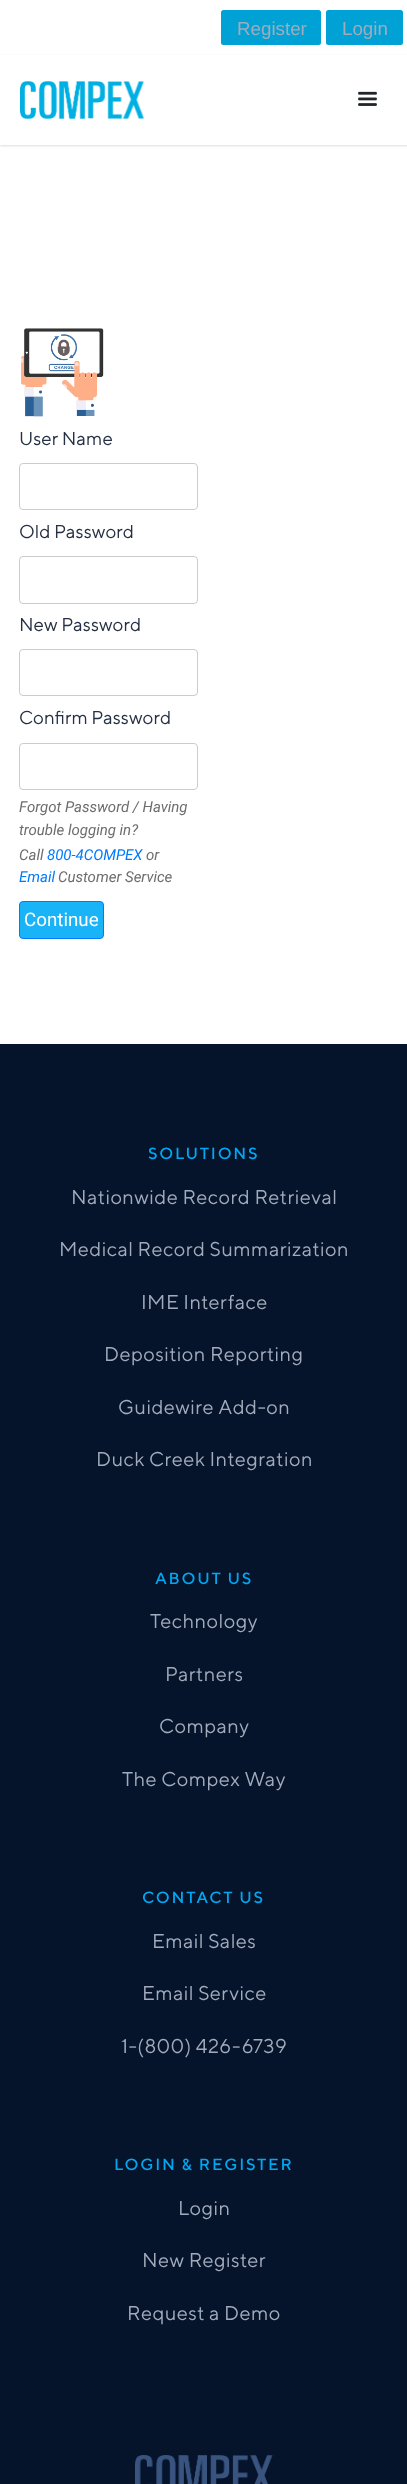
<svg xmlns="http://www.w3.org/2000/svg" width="407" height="2484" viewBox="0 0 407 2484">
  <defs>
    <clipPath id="clip1"><path d="M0 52H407V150H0ZM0 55H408V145H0Z" clip-rule="evenodd"/></clipPath>
  </defs>
  <rect width="100%" height="100%" fill="rgb(255,255,255)"/>
  <rect x="221" y="10" width="100" height="35" rx="2.5" fill="rgb(0,162,213)"/>
  <text x="237" y="35" font-family="Liberation Sans" font-size="18.75" fill="rgb(162,171,187)">Register</text>
  <rect x="326" y="10" width="77" height="35" rx="2.5" fill="rgb(0,162,213)"/>
  <text x="342" y="35" font-family="Liberation Sans" font-size="18.75" fill="rgb(162,171,187)">Login</text>
  <g clip-path="url(#clip1)">
    <rect x="0" y="56" width="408" height="90" fill="rgb(220,220,224)" filter="blur(1px)"/>
  </g>
  <image x="20" y="81" width="124" height="38" href="pic1.png"/>
  <image x="358" y="91" width="19" height="15" href="pic2.png"/>
  <image x="21" y="328" width="83" height="89" href="pic3.png"/>
  <text x="19" y="445" font-family="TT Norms" font-size="18.75" fill="rgb(38,48,68)">User Name</text>
  <rect x="19.5" y="463.5" width="178" height="46" rx="3.5" fill="none" stroke="rgb(204,204,204)"/>
  <text x="19" y="538" font-family="TT Norms" font-size="18.75" fill="rgb(38,48,68)">Old Password</text>
  <rect x="19.5" y="556.5" width="178" height="47" rx="3.5" fill="none" stroke="rgb(204,204,204)"/>
  <text x="19" y="631" font-family="TT Norms" font-size="18.75" fill="rgb(38,48,68)">New Password</text>
  <rect x="19.5" y="649.5" width="178" height="46" rx="3.5" fill="none" stroke="rgb(204,204,204)"/>
  <text x="19" y="724" font-family="TT Norms" font-size="18.75" fill="rgb(38,48,68)">Confirm Password</text>
  <rect x="19.5" y="743.5" width="178" height="46" rx="3.5" fill="none" stroke="rgb(204,204,204)"/>
  <g font-family="Roboto" font-size="15" font-style="italic" fill="rgb(109,109,109)">
    <text>
      <tspan x="19" y="812">Forgot Password / Having</tspan>
      <tspan x="19" y="835">trouble logging in?</tspan>
      <tspan x="19" y="860">Call</tspan>
    </text>
  </g>
  <text x="47" y="860" font-family="Roboto" font-size="15" font-style="italic" fill="rgb(0,123,255)">800-4COMPEX</text>
  <text x="146" y="860" font-family="Roboto" font-size="15" font-style="italic" fill="rgb(109,109,109)">or</text>
  <text x="19" y="882" font-family="Roboto" font-size="15" font-style="italic" fill="rgb(0,123,255)">Email</text>
  <text x="58" y="882" font-family="Roboto" font-size="15" font-style="italic" fill="rgb(109,109,109)">Customer Service</text>
  <rect x="19.5" y="901.5" width="84" height="37" rx="3.5" fill="rgb(25,180,248)" stroke="rgb(0,123,255)"/>
  <text x="24" y="926" font-family="Roboto" font-size="18.75" fill="rgb(255,255,255)">Continue</text>
  <rect x="0" y="1044" width="407" height="1440" fill="rgb(5,19,43)"/>
  <text x="148" y="1159" font-family="TT Norms" font-size="16.25" font-weight="500" letter-spacing="1.75" fill="rgb(0,168,242)">SOLUTIONS</text>
  <g font-family="TT Norms" font-size="20" letter-spacing="0.4" fill="rgb(162,171,187)">
    <text x="71" y="1204">Nationwide Record Retrieval</text>
    <text x="59" y="1256">Medical Record Summarization</text>
    <text x="141" y="1309">IME Interface</text>
    <text x="104" y="1361">Deposition Reporting</text>
    <text x="118" y="1414">Guidewire Add-on</text>
    <text x="96" y="1466">Duck Creek Integration</text>
  </g>
  <text x="155" y="1584" font-family="TT Norms" font-size="16.25" font-weight="500" letter-spacing="1.75" fill="rgb(0,168,242)">ABOUT US</text>
  <g font-family="TT Norms" font-size="20" letter-spacing="0.4" fill="rgb(162,171,187)">
    <text x="150" y="1628">Technology</text>
    <text x="165" y="1681">Partners</text>
    <text x="159" y="1733">Company</text>
    <text x="122" y="1786">The Compex Way</text>
  </g>
  <text x="142" y="1903" font-family="TT Norms" font-size="16.25" font-weight="500" letter-spacing="1.75" fill="rgb(0,168,242)">CONTACT US</text>
  <g font-family="TT Norms" font-size="20" letter-spacing="0.4" fill="rgb(162,171,187)">
    <text x="152" y="1948">Email Sales</text>
    <text x="142" y="2000">Email Service</text>
    <text x="121" y="2053">1-(800) 426-6739</text>
  </g>
  <text x="114" y="2170" font-family="TT Norms" font-size="16.25" font-weight="500" letter-spacing="1.75" fill="rgb(0,168,242)">LOGIN &amp; REGISTER</text>
  <g font-family="TT Norms" font-size="20" letter-spacing="0.4" fill="rgb(162,171,187)">
    <text x="178" y="2215">Login</text>
    <text x="142" y="2267">New Register</text>
    <text x="127" y="2320">Request a Demo</text>
  </g>
  <image x="135" y="2455" width="138" height="29" href="pic4.png"/>
</svg>
